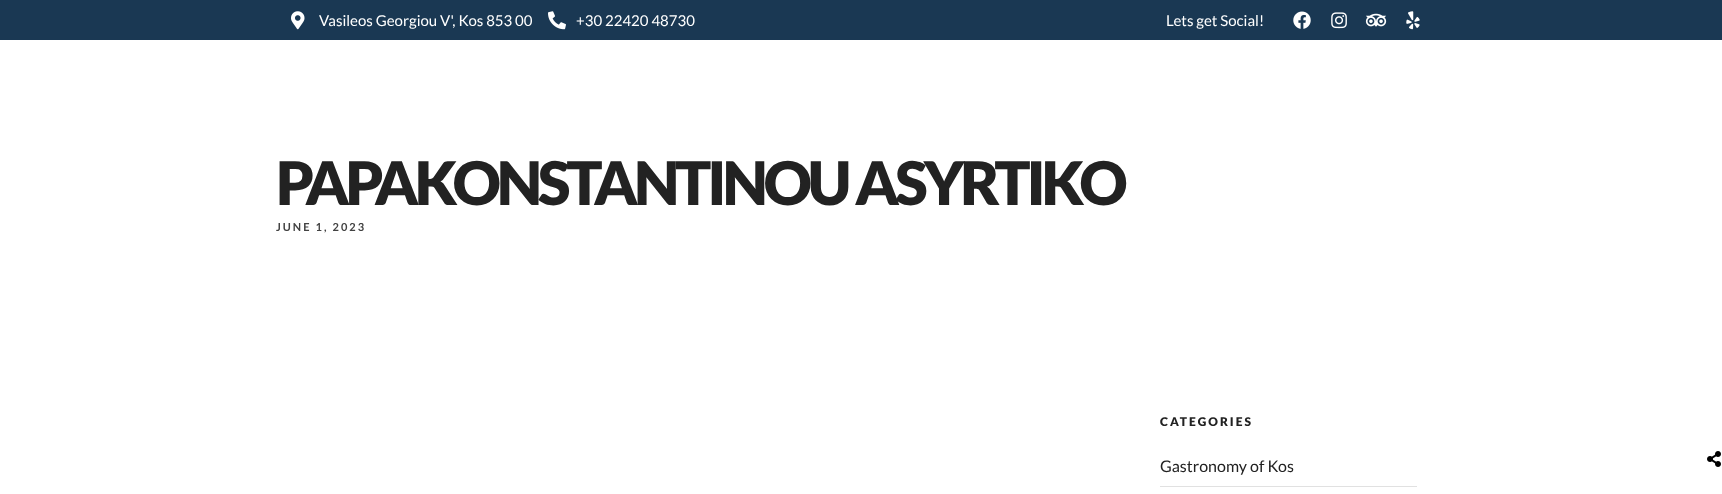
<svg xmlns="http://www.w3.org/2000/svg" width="1722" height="494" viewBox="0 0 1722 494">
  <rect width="100%" height="100%" fill="rgb(255,255,255)"/>
  <rect x="0" y="0" width="1722" height="40" fill="rgb(26,56,83)"/>
  <image x="291" y="11" width="14" height="19" href="pic1.png"/>
  <text x="319" y="26" font-family="Lato" font-size="15" fill="rgb(255,255,255)">Vasileos Georgiou V', Kos 853 00</text>
  <image x="548" y="11" width="18" height="19" href="pic2.png"/>
  <g font-family="Lato" font-size="15" fill="rgb(255,255,255)">
    <text x="576" y="26">+30 22420 48730</text>
    <text x="1166" y="26">Lets get Social!</text>
  </g>
  <image x="1293" y="11" width="18" height="18" href="pic3.png"/>
  <image x="1331" y="12" width="16" height="17" href="pic4.png"/>
  <image x="1365" y="13" width="22" height="14" href="pic5.png"/>
  <image x="1406" y="11" width="14" height="19" href="pic6.png"/>
  <text x="276" y="205" font-family="Lato" font-size="60" font-weight="900" letter-spacing="-4" fill="rgb(34,34,34)">PAPAKONSTANTINOU ASYRTIKO</text>
  <text x="276" y="231" font-family="Lato" font-size="11" font-weight="bold" letter-spacing="2" fill="rgb(66,66,66)">JUNE 1, 2023</text>
  <text x="1160" y="426" font-family="Lato" font-size="12" font-weight="900" letter-spacing="2" fill="rgb(34,34,34)">CATEGORIES</text>
  <rect x="1160" y="486" width="257" height="1" fill="rgb(225,225,225)"/>
  <text x="1160" y="472" font-family="Lato" font-size="16" fill="rgb(34,34,34)">Gastronomy of Kos</text>
  <image x="1707" y="451" width="14" height="16" href="pic7.png"/>
</svg>
